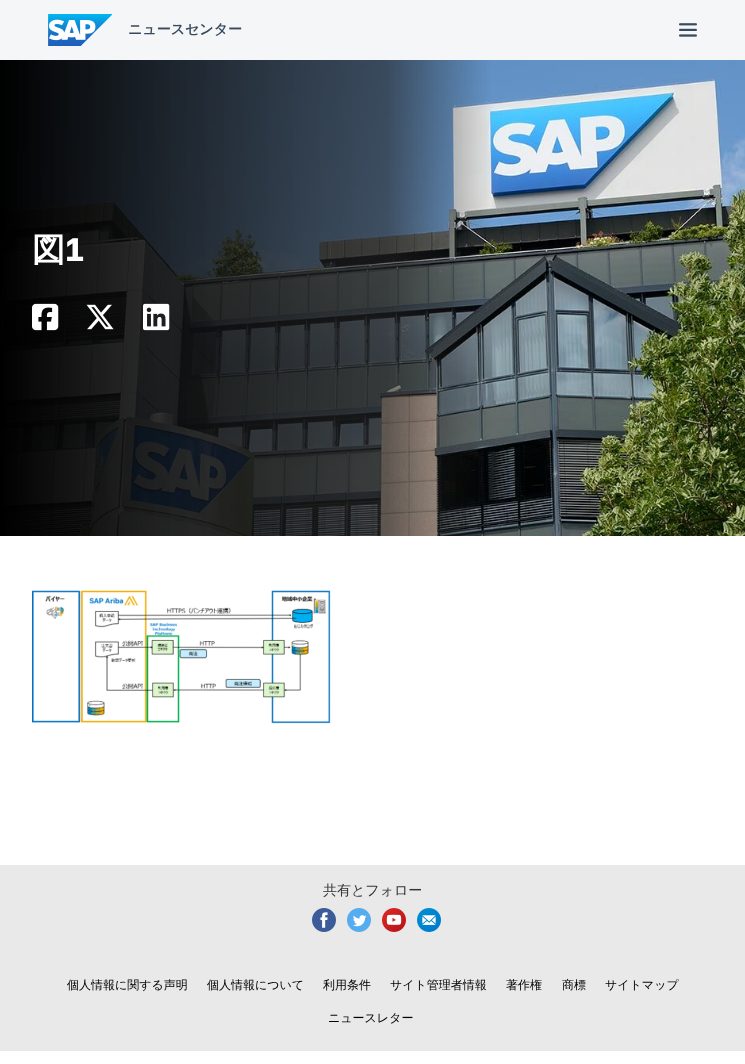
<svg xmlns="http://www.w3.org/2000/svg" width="745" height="1064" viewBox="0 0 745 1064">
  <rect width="100%" height="100%" fill="rgb(255,255,255)"/>
  <rect x="0" y="0" width="745" height="60" fill="rgb(245,246,247)"/>
  <image x="48" y="14" width="64" height="32" href="pic1.png"/>
  <text x="128" y="34" font-family="WenQuanYi Zen Hei" font-size="14" font-weight="bold" fill="rgb(53,74,95)">ニュースセンター</text>
  <image x="679" y="23" width="18" height="14" href="pic2.png"/>
  <image x="0" y="60" width="745" height="476" href="pic3.png"/>
  <text x="32" y="261" font-family="WenQuanYi Zen Hei" font-size="33" font-weight="bold" fill="rgb(255,255,255)">図</text>
  <text x="65" y="261" font-family="'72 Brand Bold'" font-size="33" font-weight="bold" fill="rgb(255,255,255)">1</text>
  <image x="32" y="303" width="27" height="28" href="pic4.png"/>
  <image x="86" y="304" width="28" height="26" href="pic5.png"/>
  <image x="143" y="303" width="27" height="28" href="pic6.png"/>
  <image x="32" y="590" width="299" height="134" href="pic7.png"/>
  <rect x="0" y="865" width="745" height="186" fill="rgb(233,233,233)"/>
  <text x="323" y="895" font-family="WenQuanYi Zen Hei" font-size="14" font-weight="500" fill="rgb(51,51,51)">共有とフォロー</text>
  <image x="312" y="908" width="24" height="24" href="pic8.png"/>
  <image x="347" y="908" width="24" height="24" href="pic9.png"/>
  <image x="382" y="908" width="24" height="24" href="pic10.png"/>
  <image x="417" y="908" width="24" height="24" href="pic11.png"/>
  <g font-family="WenQuanYi Zen Hei" font-size="12" font-weight="500" fill="rgb(0,0,0)">
    <text x="67" y="989">個人情報に関する声明</text>
    <text x="207" y="989">個人情報について</text>
    <text x="323" y="989">利用条件</text>
    <text x="390" y="989">サイト管理者情報</text>
    <text x="506" y="989">著作権</text>
    <text x="562" y="989">商標</text>
    <text x="605" y="989">サイトマップ</text>
    <text x="328" y="1022">ニュースレター</text>
  </g>
</svg>
